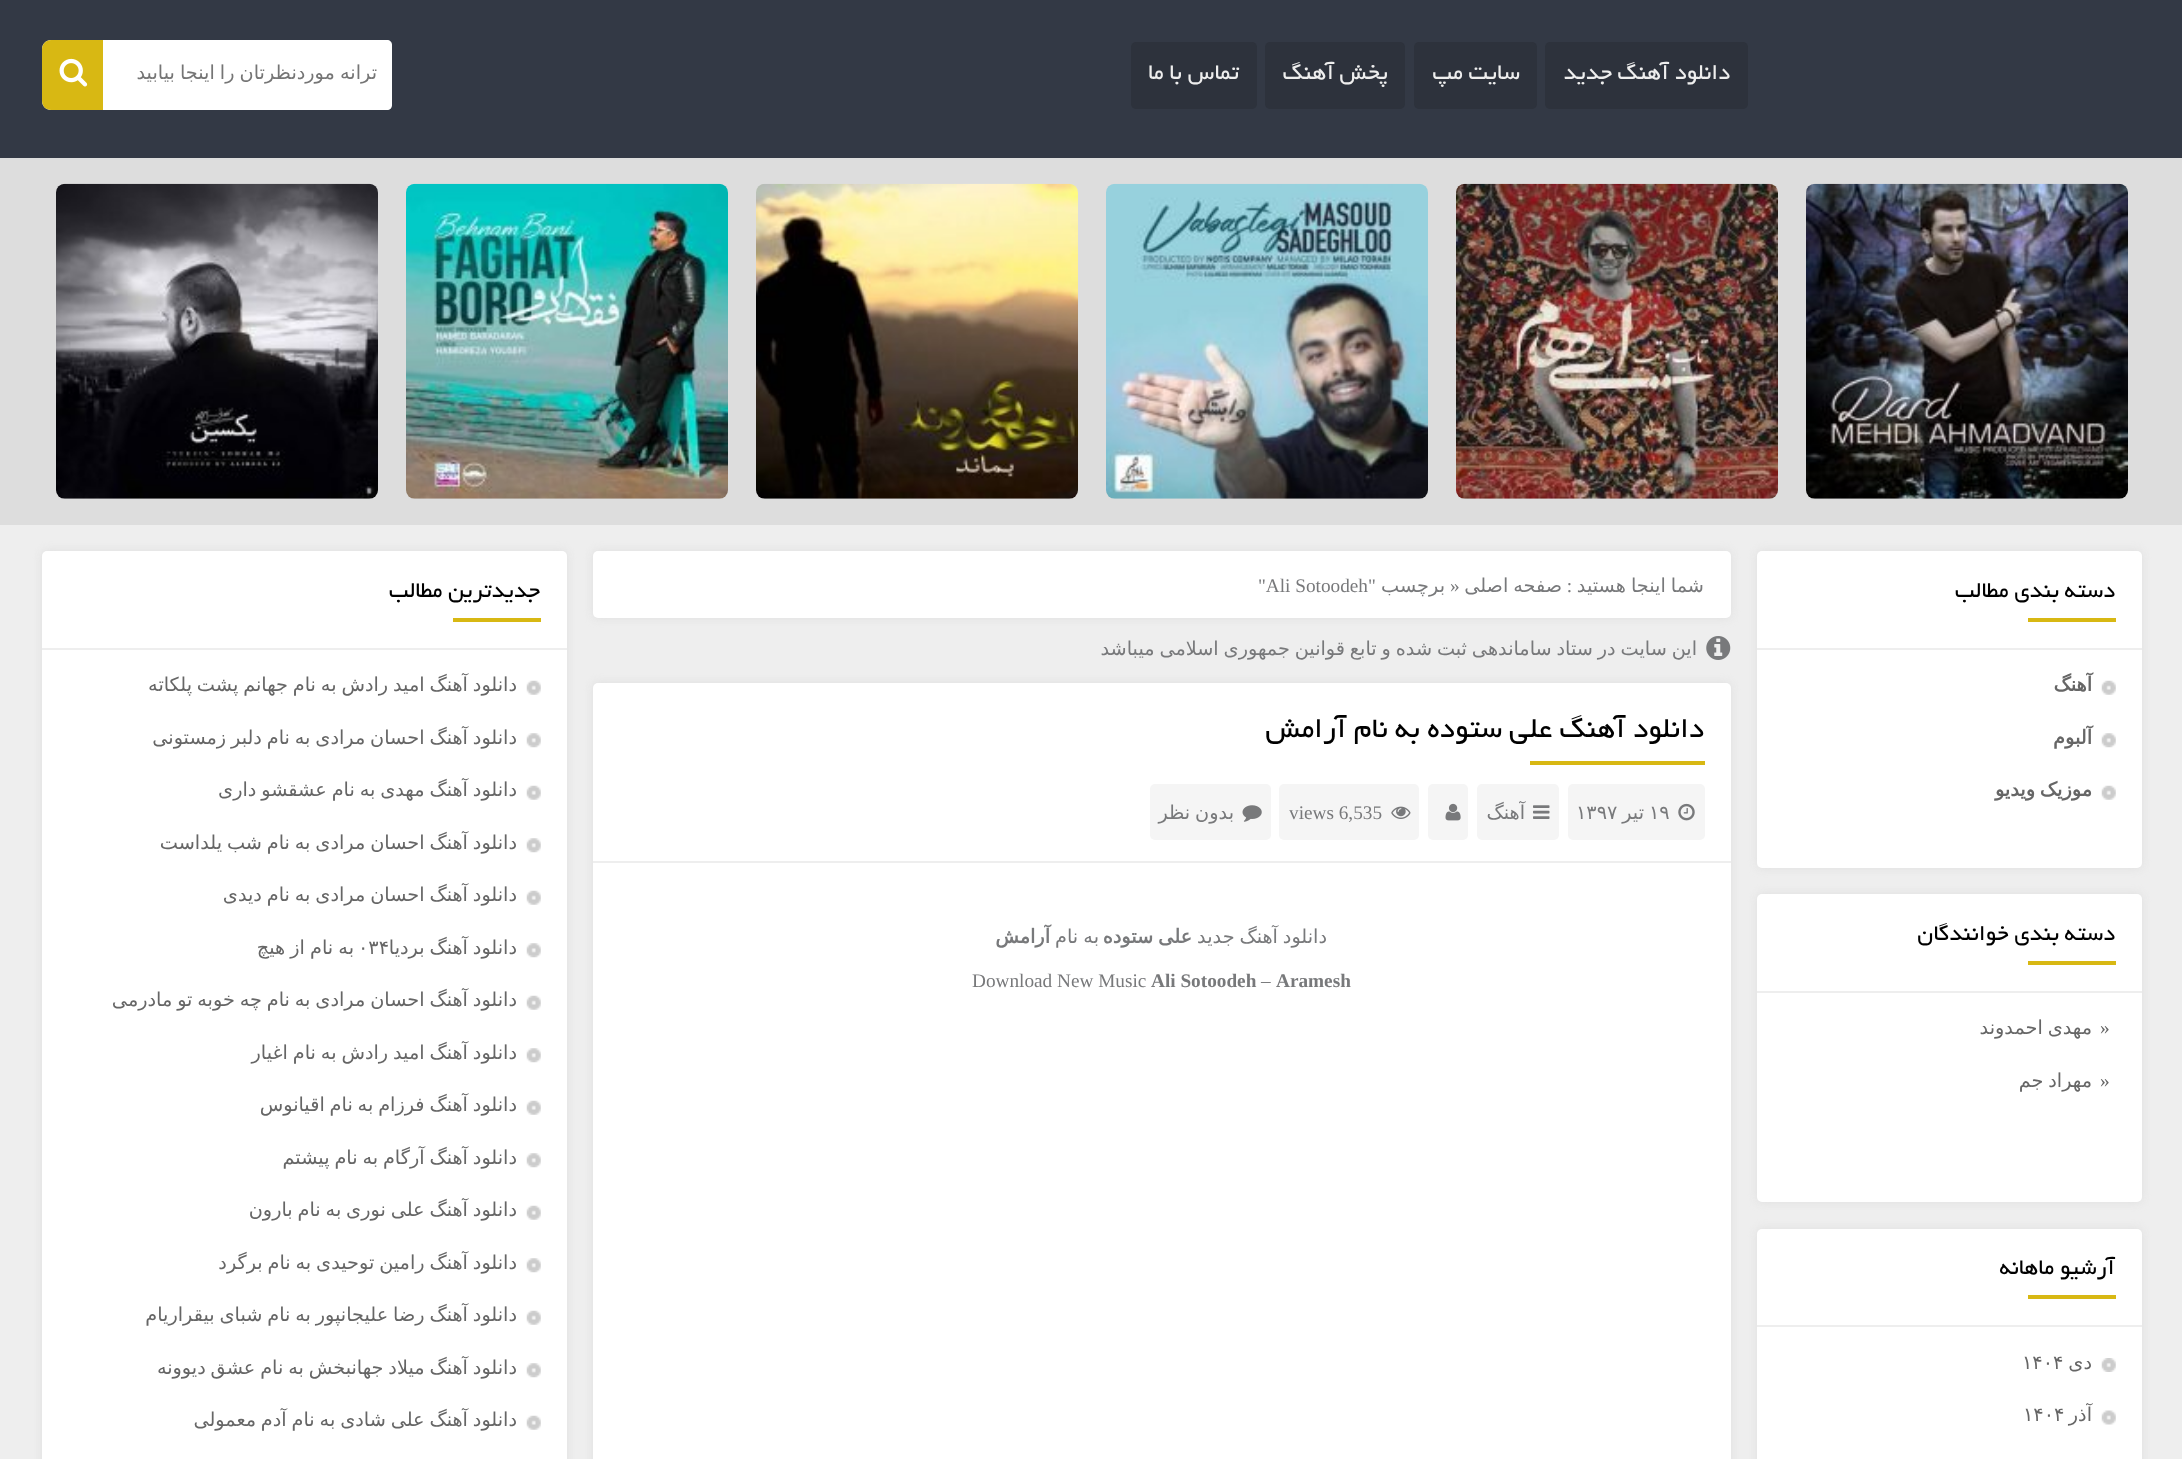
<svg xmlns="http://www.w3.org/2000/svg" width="2182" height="1459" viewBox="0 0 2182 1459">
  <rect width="100%" height="100%" fill="rgb(238,238,238)"/>
  <rect x="0" y="0" width="2182" height="158" fill="rgb(51,57,69)"/>
  <rect x="1545" y="42" width="203" height="67" rx="5" fill="rgb(45,50,60)"/>
  <text x="1730" y="79" font-family="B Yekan" font-size="24.5" direction="rtl" fill="rgb(238,238,238)">دانلود آهنگ جدید</text>
  <rect x="1414" y="42" width="123" height="67" rx="5" fill="rgb(45,50,60)"/>
  <text x="1520" y="79" font-family="B Yekan" font-size="24.5" direction="rtl" fill="rgb(238,238,238)">سایت مپ</text>
  <rect x="1265" y="42" width="140" height="67" rx="5" fill="rgb(45,50,60)"/>
  <text x="1388" y="79" font-family="B Yekan" font-size="24.5" direction="rtl" fill="rgb(238,238,238)">پخش آهنگ</text>
  <rect x="1131" y="42" width="126" height="67" rx="5" fill="rgb(45,50,60)"/>
  <text x="1239" y="79" font-family="B Yekan" font-size="24.5" direction="rtl" fill="rgb(238,238,238)">تماس با ما</text>
  <path d="M51 40H387C390 40 392 42 392 45V105C392 108 390 110 387 110H51C46 110 42 106 42 101V49C42 44 46 40 51 40Z" fill="rgb(255,255,255)"/>
  <text x="377" y="79" word-spacing="-1" font-family="DejaVu Sans" font-size="19.25" direction="rtl" fill="rgb(117,117,117)">ترانه موردنظرتان را اینجا بیابید</text>
  <path d="M51 40H103V110H51C46 110 42 106 42 101V49C42 44 46 40 51 40Z" fill="rgb(216,184,19)"/>
  <image x="59" y="58" width="29" height="29" href="pic1.png"/>
  <rect x="0" y="158" width="2182" height="367" fill="rgb(221,221,221)"/>
  <image x="1806" y="183" width="322" height="316" href="pic2.png"/>
  <image x="1456" y="183" width="322" height="316" href="pic3.png"/>
  <image x="1106" y="183" width="322" height="316" href="pic4.png"/>
  <image x="756" y="183" width="322" height="316" href="pic5.png"/>
  <image x="406" y="183" width="322" height="316" href="pic6.png"/>
  <image x="56" y="183" width="322" height="316" href="pic7.png"/>
  <rect x="1757" y="551" width="385" height="317" rx="5" fill="rgb(221,221,221)" filter="blur(4.5px)"/>
  <rect x="1757" y="551" width="385" height="317" rx="5" fill="rgb(255,255,255)"/>
  <rect x="1757" y="648" width="385" height="2" fill="rgb(238,238,238)"/>
  <text x="2115" y="597" font-family="B Yekan" font-size="24.5" direction="rtl" fill="rgb(0,0,0)">دسته بندی مطالب</text>
  <rect x="2028" y="618" width="88" height="4" fill="rgb(216,184,19)"/>
  <image x="2101" y="680" width="15" height="15" href="pic8.png"/>
  <text x="2092" y="691" font-family="DejaVu Sans" font-size="19.25" font-weight="bold" direction="rtl" fill="rgb(102,102,102)">آهنگ</text>
  <image x="2101" y="733" width="15" height="15" href="pic9.png"/>
  <text x="2092" y="744" font-family="DejaVu Sans" font-size="19.25" font-weight="bold" direction="rtl" fill="rgb(102,102,102)">آلبوم</text>
  <image x="2101" y="785" width="15" height="15" href="pic8.png"/>
  <text x="2092" y="796" word-spacing="-1.25" font-family="DejaVu Sans" font-size="19.25" font-weight="bold" direction="rtl" fill="rgb(102,102,102)">موزیک ویدیو</text>
  <rect x="1757" y="894" width="385" height="308" rx="5" fill="rgb(221,221,221)" filter="blur(4.5px)"/>
  <rect x="1757" y="894" width="385" height="308" rx="5" fill="rgb(255,255,255)"/>
  <rect x="1757" y="991" width="385" height="2" fill="rgb(238,238,238)"/>
  <text x="2115" y="940" font-family="B Yekan" font-size="24.5" direction="rtl" fill="rgb(0,0,0)">دسته بندی خوانندگان</text>
  <rect x="2028" y="961" width="88" height="4" fill="rgb(216,184,19)"/>
  <text x="2100" y="1034" font-family="Liberation Serif" font-size="19.25" fill="rgb(102,102,102)">»</text>
  <text x="2092" y="1034" word-spacing="-1.25" font-family="DejaVu Sans" font-size="19.25" direction="rtl" fill="rgb(102,102,102)">مهدی احمدوند</text>
  <text x="2100" y="1087" font-family="Liberation Serif" font-size="19.25" fill="rgb(102,102,102)">»</text>
  <text x="2092" y="1087" word-spacing="-1.25" font-family="DejaVu Sans" font-size="19.25" direction="rtl" fill="rgb(102,102,102)">مهراد جم</text>
  <rect x="1757" y="1229" width="385" height="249" rx="5" fill="rgb(221,221,221)" filter="blur(4.5px)"/>
  <rect x="1757" y="1229" width="385" height="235" rx="5" fill="rgb(255,255,255)"/>
  <rect x="1757" y="1325" width="385" height="2" fill="rgb(238,238,238)"/>
  <text x="2115" y="1274" font-family="B Yekan" font-size="24.5" direction="rtl" fill="rgb(0,0,0)">آرشیو ماهانه</text>
  <rect x="2028" y="1295" width="88" height="4" fill="rgb(216,184,19)"/>
  <image x="2101" y="1358" width="15" height="14" href="pic10.png"/>
  <text x="2092" y="1369" font-family="DejaVu Sans" font-size="19.25" direction="rtl" fill="rgb(102,102,102)">دی</text>
  <text x="2022" y="1369" font-family="DejaVu Sans" font-size="19.25" fill="rgb(102,102,102)">۱۴۰۴</text>
  <image x="2101" y="1410" width="15" height="15" href="pic11.png"/>
  <text x="2092" y="1421" font-family="DejaVu Sans" font-size="19.25" direction="rtl" fill="rgb(102,102,102)">آذر</text>
  <text x="2023" y="1421" font-family="DejaVu Sans" font-size="19.25" fill="rgb(102,102,102)">۱۴۰۴</text>
  <rect x="593" y="551" width="1138" height="67" rx="5" fill="rgb(221,221,221)" filter="blur(4.5px)"/>
  <rect x="593" y="551" width="1138" height="67" rx="5" fill="rgb(255,255,255)"/>
  <text x="1704" y="592" word-spacing="-1" font-family="DejaVu Sans" font-size="19.25" direction="rtl" fill="rgb(120,121,123)">شما اینجا هستید</text>
  <text x="1572" y="592" font-family="Liberation Serif" font-size="19.25" direction="rtl" fill="rgb(120,121,123)">:</text>
  <text x="1562" y="592" word-spacing="-1.25" font-family="DejaVu Sans" font-size="19.25" direction="rtl" fill="rgb(120,121,123)">صفحه اصلی</text>
  <text x="1450" y="592" font-family="Liberation Serif" font-size="19.25" fill="rgb(120,121,123)">»</text>
  <text x="1445" y="592" font-family="DejaVu Sans" font-size="19.25" direction="rtl" fill="rgb(120,121,123)">برچسب</text>
  <text x="1258" y="592" font-family="Liberation Serif" font-size="19.25" fill="rgb(120,121,123)">"Ali Sotoodeh"</text>
  <image x="1706" y="636" width="25" height="24" href="pic12.png"/>
  <text x="1697" y="655" word-spacing="-1.25" font-family="DejaVu Sans" font-size="19.25" direction="rtl" fill="rgb(120,121,123)">این سایت در ستاد ساماندهی ثبت شده و تابع قوانین جمهوری اسلامی میباشد</text>
  <rect x="593" y="683" width="1138" height="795" rx="5" fill="rgb(221,221,221)" filter="blur(4.5px)"/>
  <rect x="593" y="683" width="1138" height="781" rx="5" fill="rgb(255,255,255)"/>
  <text x="1704" y="737" font-family="B Yekan" font-size="31.5" direction="rtl" fill="rgb(0,0,0)">دانلود آهنگ علی ستوده به نام آرامش</text>
  <rect x="1530" y="761" width="175" height="4" fill="rgb(216,184,19)"/>
  <rect x="593" y="861" width="1138" height="2" fill="rgb(238,238,238)"/>
  <rect x="1568" y="784" width="137" height="56" rx="5" fill="rgb(245,245,245)"/>
  <image x="1678" y="803" width="17" height="18" href="pic13.png"/>
  <text x="1649" y="819" font-family="DejaVu Sans" font-size="19.25" fill="rgb(120,121,123)">۱۹</text>
  <text x="1644" y="819" font-family="DejaVu Sans" font-size="19.25" direction="rtl" fill="rgb(120,121,123)">تیر</text>
  <text x="1576" y="819" font-family="DejaVu Sans" font-size="19.25" fill="rgb(120,121,123)">۱۳۹۷</text>
  <rect x="1477" y="784" width="82" height="56" rx="5" fill="rgb(245,245,245)"/>
  <image x="1533" y="805" width="17" height="14" href="pic14.png"/>
  <text x="1525" y="819" font-family="DejaVu Sans" font-size="19.25" direction="rtl" fill="rgb(120,121,123)">آهنگ</text>
  <rect x="1428" y="784" width="40" height="56" rx="5" fill="rgb(245,245,245)"/>
  <image x="1445" y="803" width="16" height="18" href="pic15.png"/>
  <rect x="1279" y="784" width="140" height="56" rx="5" fill="rgb(245,245,245)"/>
  <image x="1391" y="806" width="20" height="13" href="pic16.png"/>
  <text x="1289" y="819" font-family="Liberation Serif" font-size="19.25" fill="rgb(120,121,123)">views 6,535</text>
  <rect x="1150" y="784" width="121" height="56" rx="5" fill="rgb(245,245,245)"/>
  <image x="1242" y="805" width="20" height="17" href="pic17.png"/>
  <g font-family="DejaVu Sans" font-size="19.25" direction="rtl" fill="rgb(120,121,123)">
    <text x="1234" y="819" word-spacing="-1.25">بدون نظر</text>
    <text x="1327" y="943" word-spacing="-1.25">دانلود آهنگ جدید</text>
  </g>
  <text x="1192" y="943" word-spacing="-1.25" font-family="DejaVu Sans" font-size="19.25" font-weight="bold" direction="rtl" fill="rgb(120,121,123)">علی ستوده</text>
  <text x="1099" y="943" word-spacing="-1" font-family="DejaVu Sans" font-size="19.25" direction="rtl" fill="rgb(120,121,123)">به نام</text>
  <text x="1050" y="943" font-family="DejaVu Sans" font-size="19.25" font-weight="bold" direction="rtl" fill="rgb(120,121,123)">آرامش</text>
  <text x="1276" y="987" font-family="Liberation Serif" font-size="19.25" font-weight="bold" fill="rgb(120,121,123)">Aramesh</text>
  <text x="1261" y="987" font-family="Liberation Serif" font-size="19.25" fill="rgb(120,121,123)">–</text>
  <text x="1151" y="987" font-family="Liberation Serif" font-size="19.25" font-weight="bold" fill="rgb(120,121,123)">Ali Sotoodeh</text>
  <text x="972" y="987" font-family="Liberation Serif" font-size="19.25" fill="rgb(120,121,123)">Download New Music</text>
  <rect x="42" y="551" width="525" height="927" rx="5" fill="rgb(221,221,221)" filter="blur(4.5px)"/>
  <rect x="42" y="551" width="525" height="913" rx="5" fill="rgb(255,255,255)"/>
  <rect x="42" y="648" width="525" height="2" fill="rgb(238,238,238)"/>
  <text x="540" y="597" font-family="B Yekan" font-size="24.5" direction="rtl" fill="rgb(0,0,0)">جدیدترین مطالب</text>
  <rect x="453" y="618" width="88" height="4" fill="rgb(216,184,19)"/>
  <image x="526" y="680" width="15" height="15" href="pic8.png"/>
  <text x="517" y="691" word-spacing="-1.25" font-family="DejaVu Sans" font-size="19.25" direction="rtl" fill="rgb(102,102,102)">دانلود آهنگ امید رادش به نام جهانم پشت پلکاته</text>
  <image x="526" y="733" width="15" height="15" href="pic9.png"/>
  <text x="517" y="744" word-spacing="-1.25" font-family="DejaVu Sans" font-size="19.25" direction="rtl" fill="rgb(102,102,102)">دانلود آهنگ احسان مرادی به نام دلبر زمستونی</text>
  <image x="526" y="785" width="15" height="15" href="pic8.png"/>
  <text x="517" y="796" word-spacing="-1.25" font-family="DejaVu Sans" font-size="19.25" direction="rtl" fill="rgb(102,102,102)">دانلود آهنگ مهدی به نام عشقشو داری</text>
  <image x="526" y="838" width="15" height="15" href="pic9.png"/>
  <text x="517" y="849" word-spacing="-1.25" font-family="DejaVu Sans" font-size="19.25" direction="rtl" fill="rgb(102,102,102)">دانلود آهنگ احسان مرادی به نام شب یلداست</text>
  <image x="526" y="890" width="15" height="15" href="pic8.png"/>
  <text x="517" y="901" word-spacing="-1.25" font-family="DejaVu Sans" font-size="19.25" direction="rtl" fill="rgb(102,102,102)">دانلود آهنگ احسان مرادی به نام دیدی</text>
  <image x="526" y="943" width="15" height="15" href="pic9.png"/>
  <text x="517" y="954" word-spacing="-1.25" font-family="DejaVu Sans" font-size="19.25" direction="rtl" fill="rgb(102,102,102)">دانلود آهنگ بردیا</text>
  <text x="358" y="954" font-family="DejaVu Sans" font-size="19.25" fill="rgb(102,102,102)">۰۳۴</text>
  <text x="354" y="954" word-spacing="-1" font-family="DejaVu Sans" font-size="19.25" direction="rtl" fill="rgb(102,102,102)">به نام از هیچ</text>
  <image x="526" y="995" width="15" height="15" href="pic8.png"/>
  <text x="517" y="1006" word-spacing="-1.25" font-family="DejaVu Sans" font-size="19.25" direction="rtl" fill="rgb(102,102,102)">دانلود آهنگ احسان مرادی به نام چه خوبه تو مادرمی</text>
  <image x="526" y="1048" width="15" height="15" href="pic9.png"/>
  <text x="517" y="1059" word-spacing="-1.25" font-family="DejaVu Sans" font-size="19.25" direction="rtl" fill="rgb(102,102,102)">دانلود آهنگ امید رادش به نام اغیار</text>
  <image x="526" y="1100" width="15" height="15" href="pic8.png"/>
  <text x="517" y="1111" word-spacing="-1.25" font-family="DejaVu Sans" font-size="19.25" direction="rtl" fill="rgb(102,102,102)">دانلود آهنگ فرزام به نام اقیانوس</text>
  <image x="526" y="1153" width="15" height="15" href="pic9.png"/>
  <text x="517" y="1164" word-spacing="-1.25" font-family="DejaVu Sans" font-size="19.25" direction="rtl" fill="rgb(102,102,102)">دانلود آهنگ آرگام به نام پیشتم</text>
  <image x="526" y="1205" width="15" height="15" href="pic8.png"/>
  <text x="517" y="1216" word-spacing="-1.25" font-family="DejaVu Sans" font-size="19.25" direction="rtl" fill="rgb(102,102,102)">دانلود آهنگ علی نوری به نام بارون</text>
  <image x="526" y="1258" width="15" height="15" href="pic9.png"/>
  <text x="517" y="1269" word-spacing="-1.25" font-family="DejaVu Sans" font-size="19.25" direction="rtl" fill="rgb(102,102,102)">دانلود آهنگ رامین توحیدی به نام برگرد</text>
  <image x="526" y="1310" width="15" height="15" href="pic8.png"/>
  <text x="517" y="1321" word-spacing="-1.25" font-family="DejaVu Sans" font-size="19.25" direction="rtl" fill="rgb(102,102,102)">دانلود آهنگ رضا علیجانپور به نام شبای بیقراریام</text>
  <image x="526" y="1363" width="15" height="15" href="pic9.png"/>
  <text x="517" y="1374" word-spacing="-1.25" font-family="DejaVu Sans" font-size="19.25" direction="rtl" fill="rgb(102,102,102)">دانلود آهنگ میلاد جهانبخش به نام عشق دیوونه</text>
  <image x="526" y="1415" width="15" height="15" href="pic8.png"/>
  <text x="517" y="1426" word-spacing="-1.25" font-family="DejaVu Sans" font-size="19.25" direction="rtl" fill="rgb(102,102,102)">دانلود آهنگ علی شادی به نام آدم معمولی</text>
</svg>
